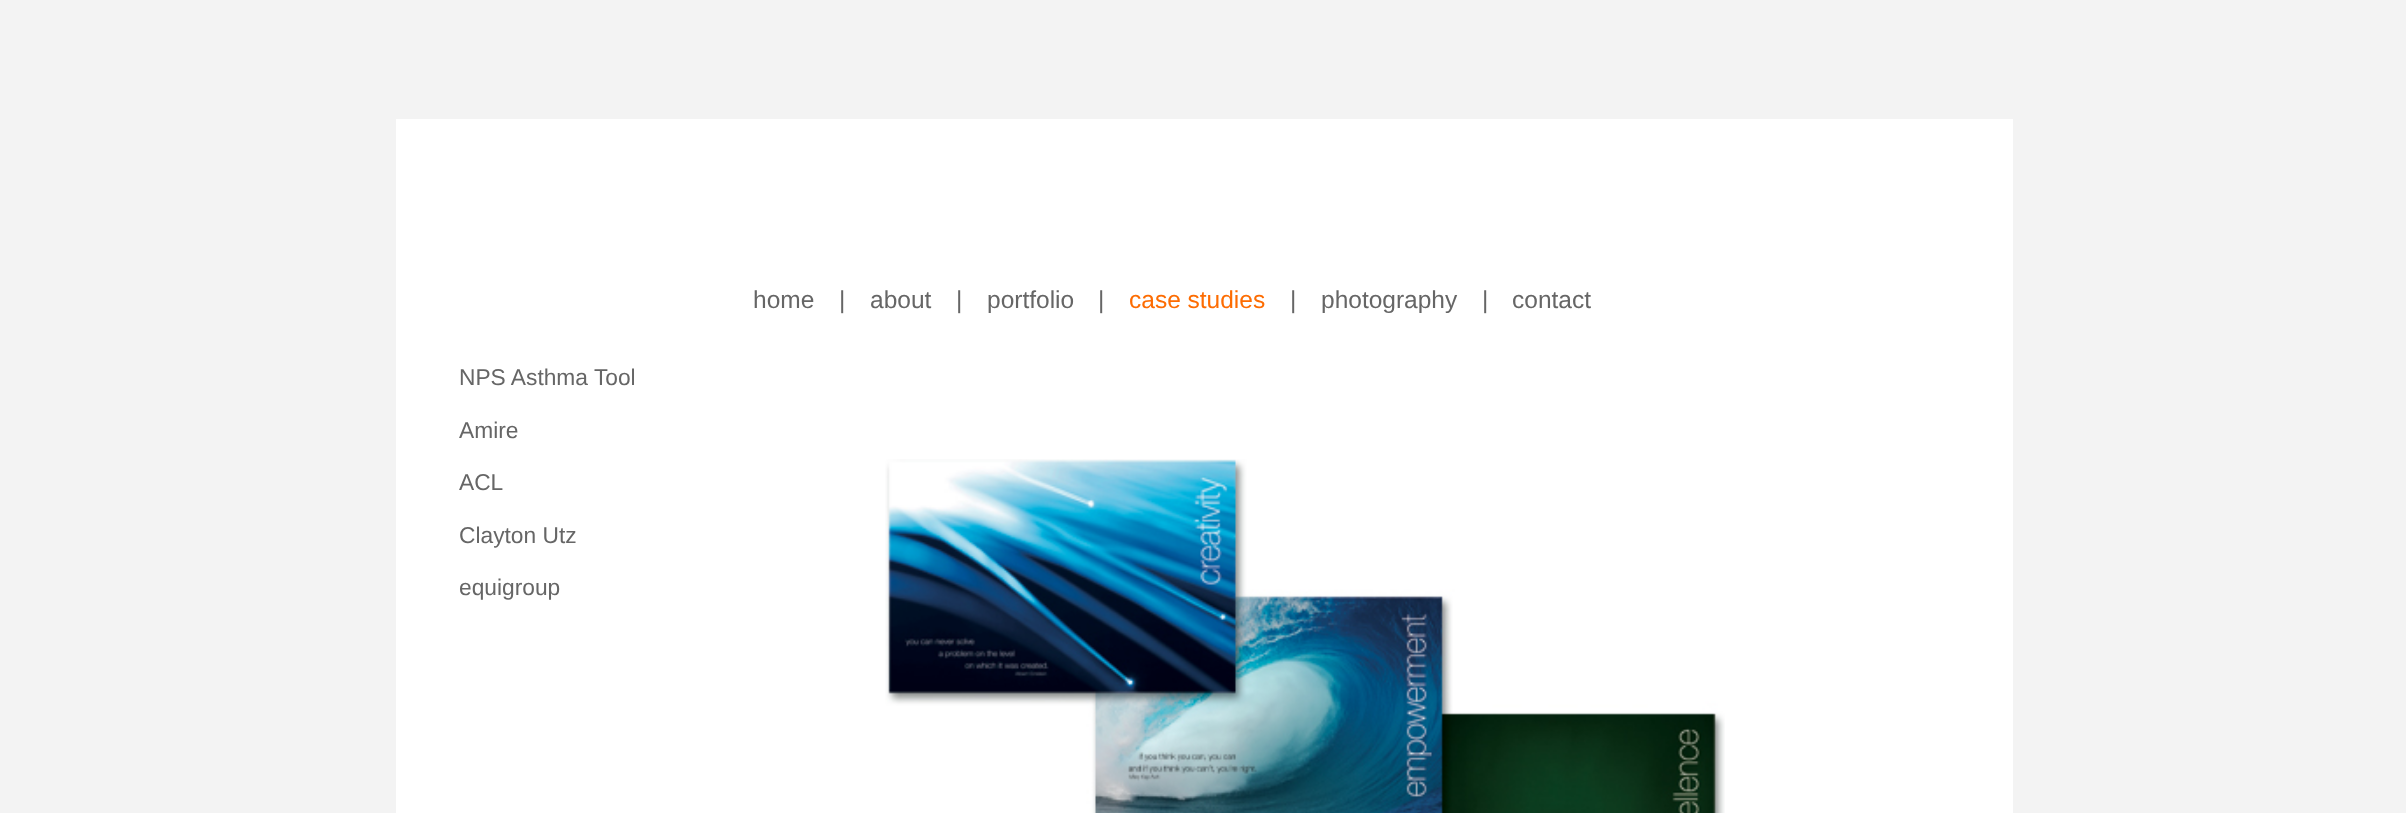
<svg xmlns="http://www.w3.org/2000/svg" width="2406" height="813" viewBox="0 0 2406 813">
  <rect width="100%" height="100%" fill="rgb(243,243,243)"/>
  <rect x="396" y="119" width="1617" height="694" fill="rgb(255,255,255)"/>
  <g font-family="Liberation Sans" font-size="24.5" fill="rgb(102,102,102)">
    <text x="753" y="308">home</text>
    <text x="839" y="308">|</text>
    <text x="870" y="308">about</text>
    <text x="956" y="308">|</text>
    <text x="987" y="308">portfolio</text>
    <text x="1098" y="308">|</text>
  </g>
  <text x="1129" y="308" font-family="Liberation Sans" font-size="24.5" fill="rgb(253,108,2)">case studies</text>
  <g font-family="Liberation Sans" font-size="24.5" fill="rgb(102,102,102)">
    <text x="1290" y="308">|</text>
    <text x="1321" y="308">photography</text>
    <text x="1482" y="308">|</text>
    <text x="1512" y="308">contact</text>
  </g>
  <g font-family="Liberation Sans" font-size="22.75" fill="rgb(102,102,102)">
    <text x="459" y="385">NPS Asthma Tool</text>
    <text x="459" y="438">Amire</text>
    <text x="459" y="490">ACL</text>
    <text x="459" y="543">Clayton Utz</text>
    <text x="459" y="595">equigroup</text>
  </g>
  <image x="885" y="459" width="840" height="354" href="pic1.png"/>
</svg>
